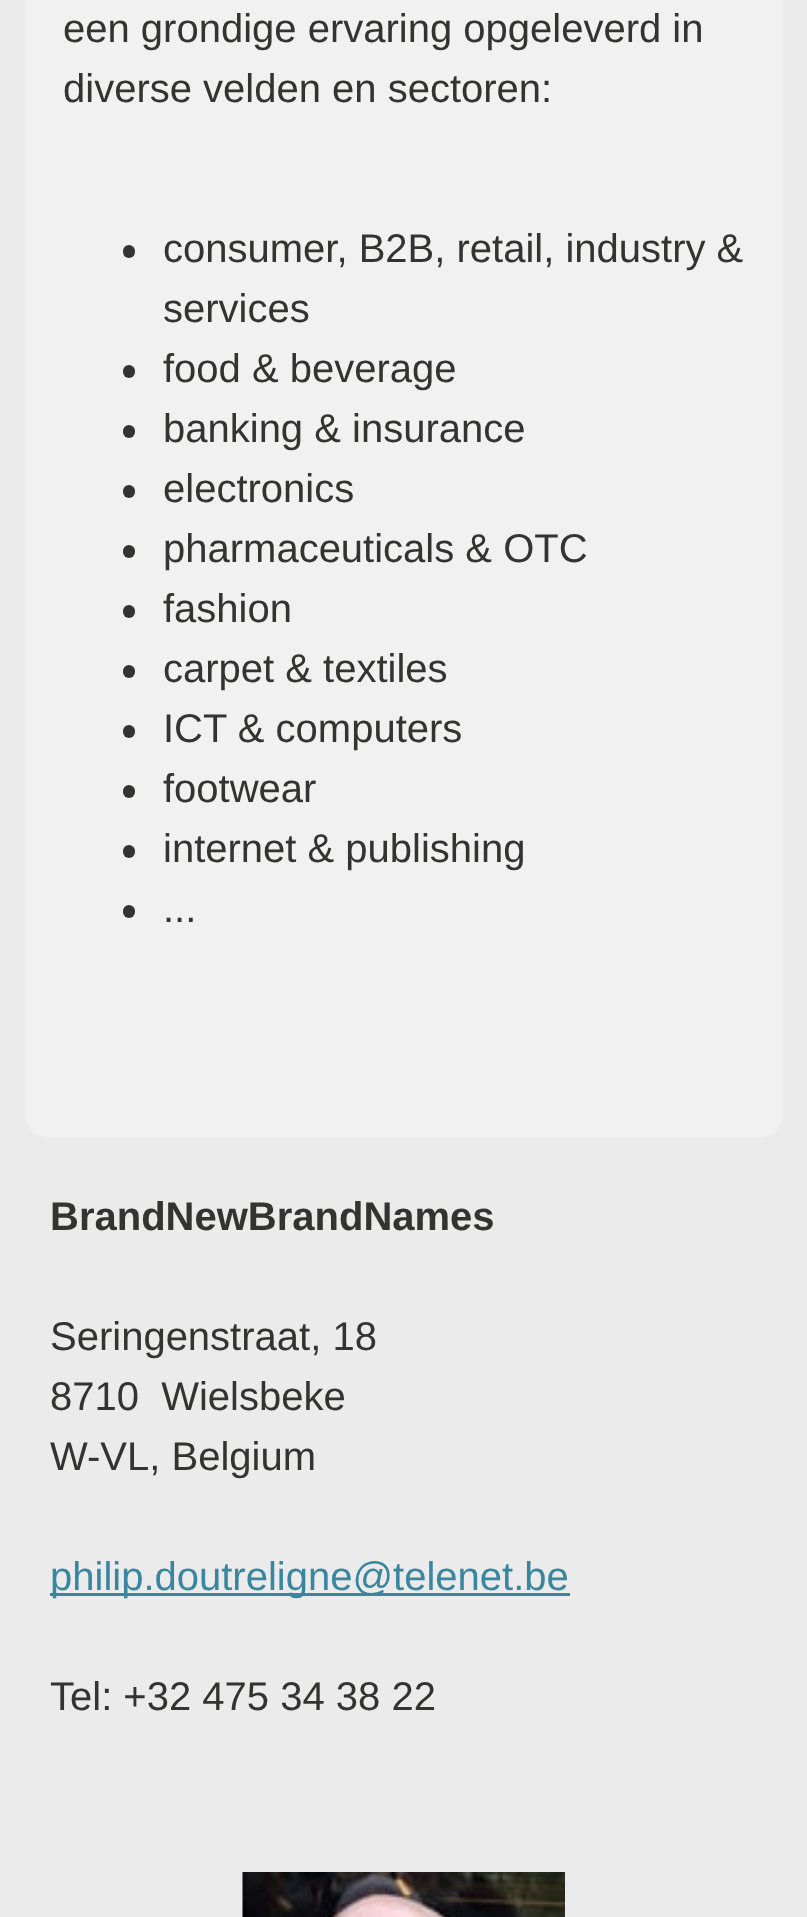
<svg xmlns="http://www.w3.org/2000/svg" width="807" height="1917" viewBox="0 0 807 1917">
  <rect width="100%" height="100%" fill="rgb(235,235,235)"/>
  <rect x="25" y="-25" width="758" height="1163" rx="25" fill="rgb(241,241,241)"/>
  <g font-family="Arimo" font-size="40" fill="rgb(51,51,50)">
    <text>
      <tspan x="63" y="42">een grondige ervaring opgeleverd in</tspan>
      <tspan x="63" y="102">diverse velden en sectoren:</tspan>
    </text>
  </g>
  <rect x="123" y="245" width="12" height="13" rx="6" fill="rgb(51,51,50)"/>
  <g font-family="Arimo" font-size="40" fill="rgb(51,51,50)">
    <text>
      <tspan x="163" y="262">consumer, B2B, retail, industry &amp;</tspan>
      <tspan x="163" y="322">services</tspan>
    </text>
  </g>
  <rect x="123" y="365" width="12" height="13" rx="6" fill="rgb(51,51,50)"/>
  <text x="163" y="382" font-family="Arimo" font-size="40" fill="rgb(51,51,50)">food &amp; beverage</text>
  <rect x="123" y="425" width="12" height="13" rx="6" fill="rgb(51,51,50)"/>
  <text x="163" y="442" font-family="Arimo" font-size="40" fill="rgb(51,51,50)">banking &amp; insurance</text>
  <rect x="123" y="485" width="12" height="13" rx="6" fill="rgb(51,51,50)"/>
  <text x="163" y="502" font-family="Arimo" font-size="40" fill="rgb(51,51,50)">electronics</text>
  <rect x="123" y="545" width="12" height="13" rx="6" fill="rgb(51,51,50)"/>
  <text x="163" y="562" font-family="Arimo" font-size="40" fill="rgb(51,51,50)">pharmaceuticals &amp; OTC</text>
  <rect x="123" y="605" width="12" height="13" rx="6" fill="rgb(51,51,50)"/>
  <text x="163" y="622" font-family="Arimo" font-size="40" fill="rgb(51,51,50)">fashion</text>
  <rect x="123" y="665" width="12" height="13" rx="6" fill="rgb(51,51,50)"/>
  <text x="163" y="682" font-family="Arimo" font-size="40" fill="rgb(51,51,50)">carpet &amp; textiles</text>
  <rect x="123" y="725" width="12" height="13" rx="6" fill="rgb(51,51,50)"/>
  <text x="163" y="742" font-family="Arimo" font-size="40" fill="rgb(51,51,50)">ICT &amp; computers</text>
  <rect x="123" y="785" width="12" height="13" rx="6" fill="rgb(51,51,50)"/>
  <text x="163" y="802" font-family="Arimo" font-size="40" fill="rgb(51,51,50)">footwear</text>
  <rect x="123" y="845" width="12" height="13" rx="6" fill="rgb(51,51,50)"/>
  <text x="163" y="862" font-family="Arimo" font-size="40" fill="rgb(51,51,50)">internet &amp; publishing</text>
  <rect x="123" y="905" width="12" height="13" rx="6" fill="rgb(51,51,50)"/>
  <text x="163" y="922" font-family="Arimo" font-size="40" fill="rgb(51,51,50)">...</text>
  <text x="50" y="1230" font-family="Arimo" font-size="40" font-weight="bold" fill="rgb(51,51,50)">BrandNewBrandNames</text>
  <g font-family="Arimo" font-size="40" fill="rgb(51,51,50)">
    <text xml:space="preserve"><tspan x="50" y="1350">Seringenstraat, 18</tspan><tspan x="50" y="1410">8710  Wielsbeke</tspan><tspan x="50" y="1470">W-VL, Belgium</tspan></text>
  </g>
  <rect x="50" y="1593" width="520" height="3" fill="rgb(57,134,160)"/>
  <text x="50" y="1590" font-family="Arimo" font-size="40" fill="rgb(57,134,160)">philip.doutreligne@telenet.be</text>
  <text x="50" y="1710" font-family="Arimo" font-size="40" fill="rgb(51,51,50)">Tel: +32 475 34 38 22</text>
  <image x="242" y="1872" width="323" height="45" href="pic1.png"/>
</svg>
